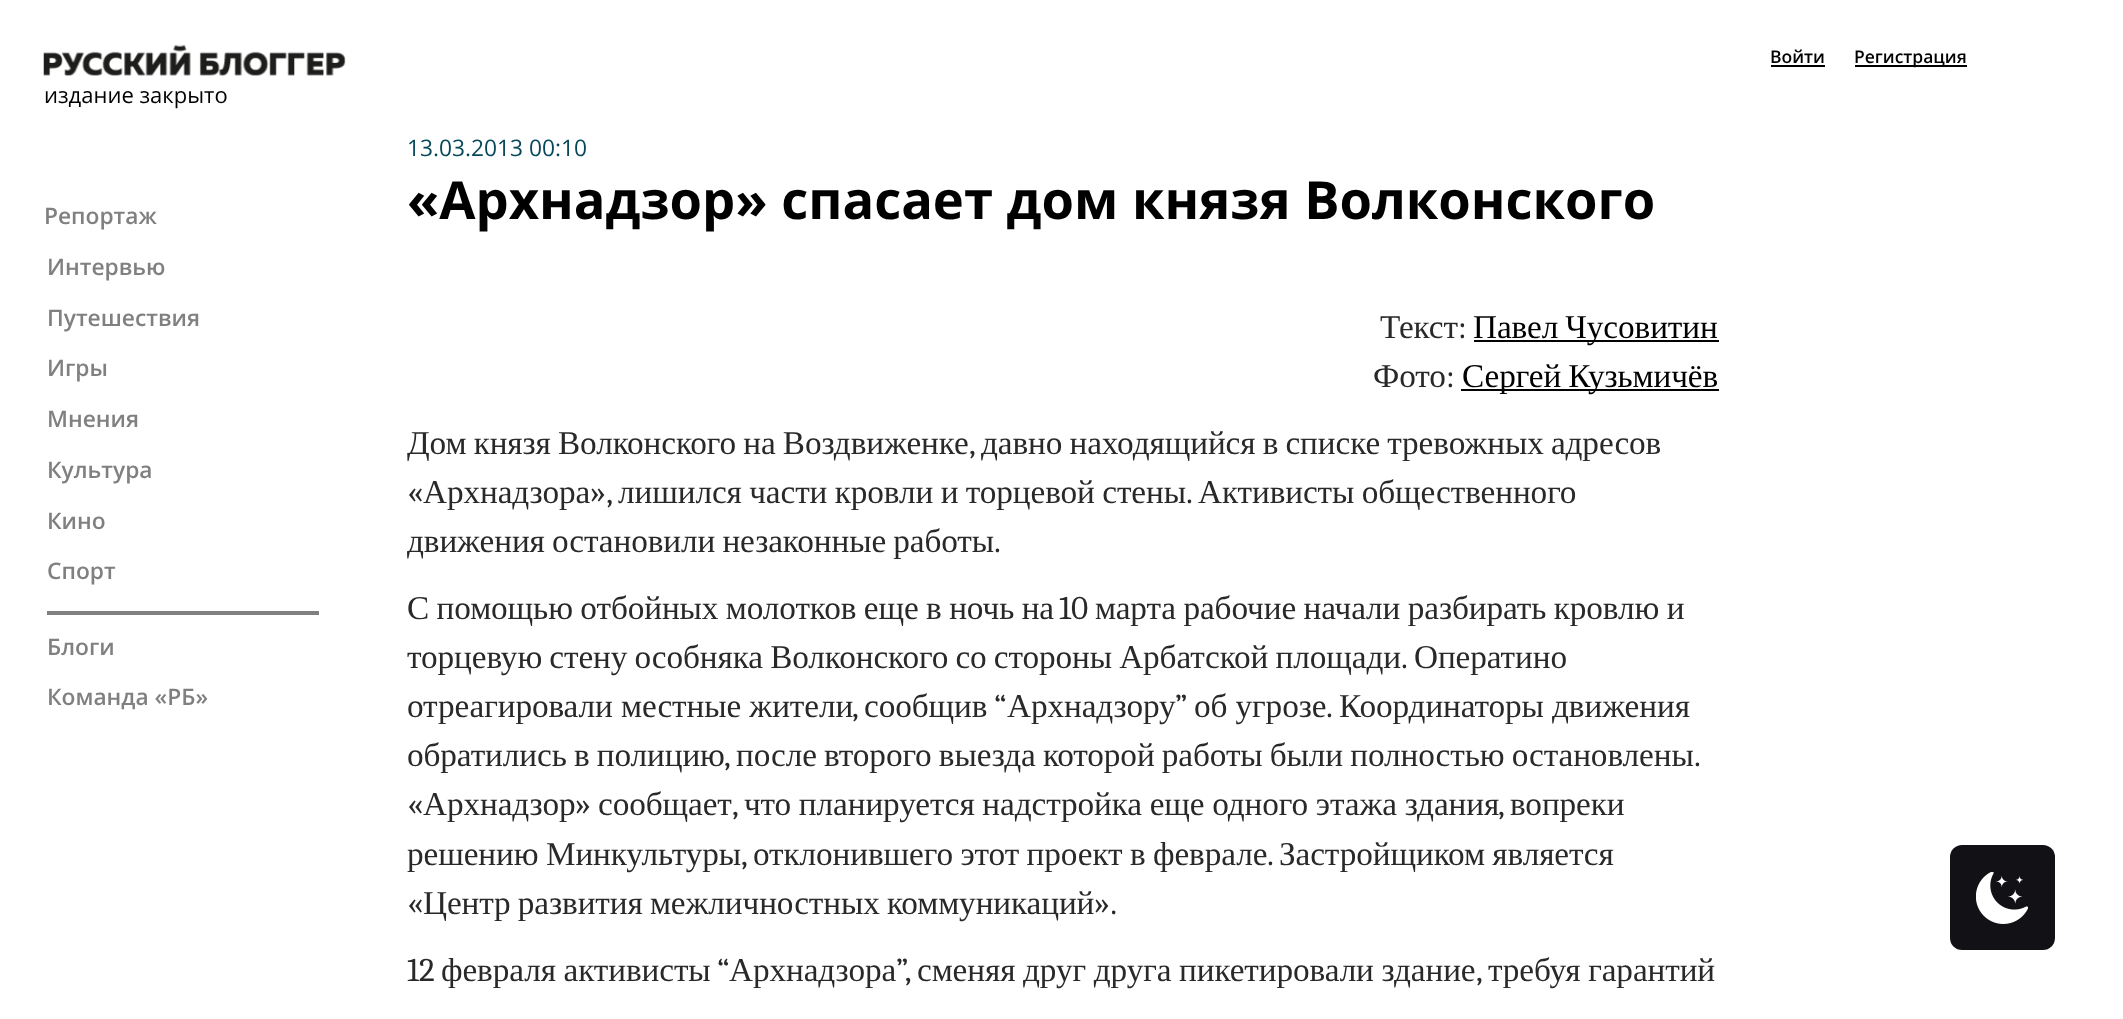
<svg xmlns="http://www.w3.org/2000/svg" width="2123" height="1019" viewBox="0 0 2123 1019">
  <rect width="100%" height="100%" fill="rgb(255,255,255)"/>
  <text x="1770" y="63" font-family="Open Sans" font-size="17.5" font-weight="600" fill="rgb(0,0,0)">Войти</text>
  <rect x="1771" y="65" width="54" height="2" fill="rgb(0,0,0)"/>
  <rect x="1855" y="65" width="112" height="2" fill="rgb(0,0,0)"/>
  <text x="1854" y="63" font-family="Open Sans" font-size="17.5" font-weight="600" fill="rgb(0,0,0)">Регистрация</text>
  <image x="43" y="44" width="303" height="32" href="pic1.png"/>
  <text x="44" y="103" font-family="Open Sans" font-size="22" fill="rgb(0,0,0)">издание закрыто</text>
  <g font-family="Open Sans" font-size="22.75" font-weight="600" fill="rgb(128,128,128)">
    <text x="44" y="224">Репортаж</text>
    <text x="47" y="275">Интервью</text>
    <text x="47" y="326">Путешествия</text>
    <text x="47" y="376">Игры</text>
    <text x="47" y="427">Мнения</text>
    <text x="47" y="478">Культура</text>
    <text x="47" y="529">Кино</text>
    <text x="47" y="579">Спорт</text>
  </g>
  <rect x="47" y="611" width="272" height="4" fill="rgb(128,128,128)"/>
  <g font-family="Open Sans" font-size="22.75" font-weight="600" fill="rgb(128,128,128)">
    <text x="47" y="655">Блоги</text>
    <text x="47" y="705">Команда «РБ»</text>
  </g>
  <text x="407" y="156" font-family="Open Sans" font-size="22.75" fill="rgb(7,72,91)">13.03.2013 00:10</text>
  <text x="407" y="219" font-family="Open Sans" font-size="52.5" font-weight="bold" fill="rgb(0,0,0)">«Архнадзор» спасает дом князя Волконского</text>
  <text x="1380" y="338" font-family="Liberation Serif" font-size="33.25" letter-spacing="-0.1" fill="rgb(41,41,41)">Текст</text>
  <text x="1458" y="338" font-family="Caladea" font-size="33.25" letter-spacing="-0.1" fill="rgb(41,41,41)">:</text>
  <rect x="1474" y="340" width="245" height="2" fill="rgb(0,0,0)"/>
  <text x="1473" y="338" word-spacing="-1" font-family="Liberation Serif" font-size="33.25" letter-spacing="-0.1" fill="rgb(0,0,0)">Павел Чусовитин</text>
  <text x="1373" y="387" font-family="Liberation Serif" font-size="33.25" letter-spacing="-0.1" fill="rgb(41,41,41)">Фото</text>
  <text x="1446" y="387" font-family="Caladea" font-size="33.25" letter-spacing="-0.1" fill="rgb(41,41,41)">:</text>
  <rect x="1461" y="389" width="258" height="2" fill="rgb(0,0,0)"/>
  <text x="1462" y="387" word-spacing="-1" font-family="Liberation Serif" font-size="33.25" letter-spacing="-0.1" fill="rgb(0,0,0)">Сергей Кузьмичёв</text>
  <text x="407" y="454" word-spacing="-1" font-family="Liberation Serif" font-size="33.25" letter-spacing="-0.1" fill="rgb(41,41,41)">Дом князя Волконского на Воздвиженке</text>
  <text x="969" y="454" font-family="Caladea" font-size="33.25" letter-spacing="-0.1" fill="rgb(41,41,41)">,</text>
  <text x="981" y="454" word-spacing="-1" font-family="Liberation Serif" font-size="33.25" letter-spacing="-0.1" fill="rgb(41,41,41)">давно находящийся в списке тревожных адресов</text>
  <text x="407" y="503" font-family="Caladea" font-size="33.25" letter-spacing="-0.1" fill="rgb(41,41,41)">«</text>
  <text x="423" y="503" font-family="Liberation Serif" font-size="33.25" letter-spacing="-0.1" fill="rgb(41,41,41)">Архнадзора</text>
  <text x="590" y="503" font-family="Caladea" font-size="33.25" letter-spacing="-0.1" fill="rgb(41,41,41)">»,</text>
  <text x="618" y="503" word-spacing="-0.75" font-family="Liberation Serif" font-size="33.25" letter-spacing="-0.1" fill="rgb(41,41,41)">лишился части кровли и торцевой стены</text>
  <text x="1186" y="503" font-family="Caladea" font-size="33.25" letter-spacing="-0.1" fill="rgb(41,41,41)">.</text>
  <g font-family="Liberation Serif" font-size="33.25" letter-spacing="-0.1" fill="rgb(41,41,41)">
    <text x="1198" y="503" word-spacing="-0.75">Активисты общественного</text>
    <text x="407" y="552" word-spacing="-1">движения остановили незаконные работы</text>
  </g>
  <text x="994" y="552" font-family="Caladea" font-size="33.25" letter-spacing="-0.1" fill="rgb(41,41,41)">.</text>
  <text x="407" y="619" word-spacing="-0.75" font-family="Liberation Serif" font-size="33.25" letter-spacing="-0.1" fill="rgb(41,41,41)">С помощью отбойных молотков еще в ночь на</text>
  <text x="1059" y="619" font-family="Caladea" font-size="33.25" letter-spacing="-0.1" fill="rgb(41,41,41)">10</text>
  <g font-family="Liberation Serif" font-size="33.25" letter-spacing="-0.1" fill="rgb(41,41,41)">
    <text x="1095" y="619" word-spacing="-0.75">марта рабочие начали разбирать кровлю и</text>
    <text x="407" y="668" word-spacing="-1">торцевую стену особняка Волконского со стороны Арбатской площади</text>
  </g>
  <text x="1401" y="668" font-family="Caladea" font-size="33.25" letter-spacing="-0.1" fill="rgb(41,41,41)">.</text>
  <g font-family="Liberation Serif" font-size="33.25" letter-spacing="-0.1" fill="rgb(41,41,41)">
    <text x="1414" y="668">Оператино</text>
    <text x="407" y="717">отреагировали местные жители</text>
  </g>
  <text x="852" y="717" font-family="Caladea" font-size="33.25" letter-spacing="-0.1" fill="rgb(41,41,41)">,</text>
  <text x="864" y="717" font-family="Liberation Serif" font-size="33.25" letter-spacing="-0.1" fill="rgb(41,41,41)">сообщив</text>
  <text x="994" y="717" font-family="Caladea" font-size="33.25" letter-spacing="-0.1" fill="rgb(41,41,41)">“</text>
  <text x="1007" y="717" font-family="Liberation Serif" font-size="33.25" letter-spacing="-0.1" fill="rgb(41,41,41)">Архнадзору</text>
  <text x="1175" y="717" font-family="Caladea" font-size="33.25" letter-spacing="-0.1" fill="rgb(41,41,41)">”</text>
  <text x="1194" y="717" font-family="Liberation Serif" font-size="33.25" letter-spacing="-0.1" fill="rgb(41,41,41)">об угрозе</text>
  <text x="1326" y="717" font-family="Caladea" font-size="33.25" letter-spacing="-0.1" fill="rgb(41,41,41)">.</text>
  <g font-family="Liberation Serif" font-size="33.25" letter-spacing="-0.1" fill="rgb(41,41,41)">
    <text x="1339" y="717">Координаторы движения</text>
    <text x="407" y="766" word-spacing="-1">обратились в полицию</text>
  </g>
  <text x="724" y="766" font-family="Caladea" font-size="33.25" letter-spacing="-0.1" fill="rgb(41,41,41)">,</text>
  <text x="736" y="766" word-spacing="-1" font-family="Liberation Serif" font-size="33.25" letter-spacing="-0.1" fill="rgb(41,41,41)">после второго выезда которой работы были полностью остановлены</text>
  <g font-family="Caladea" font-size="33.25" letter-spacing="-0.1" fill="rgb(41,41,41)">
    <text x="1694" y="766">.</text>
    <text x="407" y="815">«</text>
  </g>
  <text x="423" y="815" font-family="Liberation Serif" font-size="33.25" letter-spacing="-0.1" fill="rgb(41,41,41)">Архнадзор</text>
  <text x="575" y="815" font-family="Caladea" font-size="33.25" letter-spacing="-0.1" fill="rgb(41,41,41)">»</text>
  <g font-family="Liberation Serif" font-size="33.25" letter-spacing="-0.1" fill="rgb(41,41,41)">
    <text x="598" y="815">сообщает</text>
    <text x="744" y="815" word-spacing="-0.5">что планируется надстройка еще одного этажа здания</text>
    <text x="1510" y="815">вопреки</text>
  </g>
  <g font-family="Caladea" font-size="33.25" letter-spacing="-0.1" fill="rgb(41,41,41)">
    <text x="732" y="815">,</text>
    <text x="1498" y="815">,</text>
  </g>
  <text x="407" y="865" word-spacing="-0.75" font-family="Liberation Serif" font-size="33.25" letter-spacing="-0.1" fill="rgb(41,41,41)">решению Минкультуры</text>
  <text x="741" y="865" font-family="Caladea" font-size="33.25" letter-spacing="-0.1" fill="rgb(41,41,41)">,</text>
  <text x="753" y="865" word-spacing="-0.75" font-family="Liberation Serif" font-size="33.25" letter-spacing="-0.1" fill="rgb(41,41,41)">отклонившего этот проект в феврале</text>
  <text x="1267" y="865" font-family="Caladea" font-size="33.25" letter-spacing="-0.1" fill="rgb(41,41,41)">.</text>
  <text x="1279" y="865" word-spacing="-0.75" font-family="Liberation Serif" font-size="33.25" letter-spacing="-0.1" fill="rgb(41,41,41)">Застройщиком является</text>
  <text x="407" y="914" font-family="Caladea" font-size="33.25" letter-spacing="-0.1" fill="rgb(41,41,41)">«</text>
  <text x="423" y="914" word-spacing="-1" font-family="Liberation Serif" font-size="33.25" letter-spacing="-0.1" fill="rgb(41,41,41)">Центр развития межличностных коммуникаций</text>
  <g font-family="Caladea" font-size="33.25" letter-spacing="-0.1" fill="rgb(41,41,41)">
    <text x="1094" y="914">».</text>
    <text x="407" y="981">12</text>
  </g>
  <text x="441" y="981" word-spacing="-0.5" font-family="Liberation Serif" font-size="33.25" letter-spacing="-0.1" fill="rgb(41,41,41)">февраля активисты</text>
  <text x="717" y="981" font-family="Caladea" font-size="33.25" letter-spacing="-0.1" fill="rgb(41,41,41)">“</text>
  <text x="729" y="981" font-family="Liberation Serif" font-size="33.25" letter-spacing="-0.1" fill="rgb(41,41,41)">Архнадзора</text>
  <text x="896" y="981" font-family="Caladea" font-size="33.25" letter-spacing="-0.1" fill="rgb(41,41,41)">”,</text>
  <text x="917" y="981" word-spacing="-0.5" font-family="Liberation Serif" font-size="33.25" letter-spacing="-0.1" fill="rgb(41,41,41)">сменяя друг друга пикетировали здание</text>
  <text x="1476" y="981" font-family="Caladea" font-size="33.25" letter-spacing="-0.1" fill="rgb(41,41,41)">,</text>
  <text x="1488" y="981" word-spacing="-0.5" font-family="Liberation Serif" font-size="33.25" letter-spacing="-0.1" fill="rgb(41,41,41)">требуя гарантий</text>
  <rect x="1950" y="845" width="105" height="105" rx="12" fill="rgb(18,17,22)"/>
  <image x="1976" y="872" width="52" height="52" href="pic2.png"/>
</svg>
